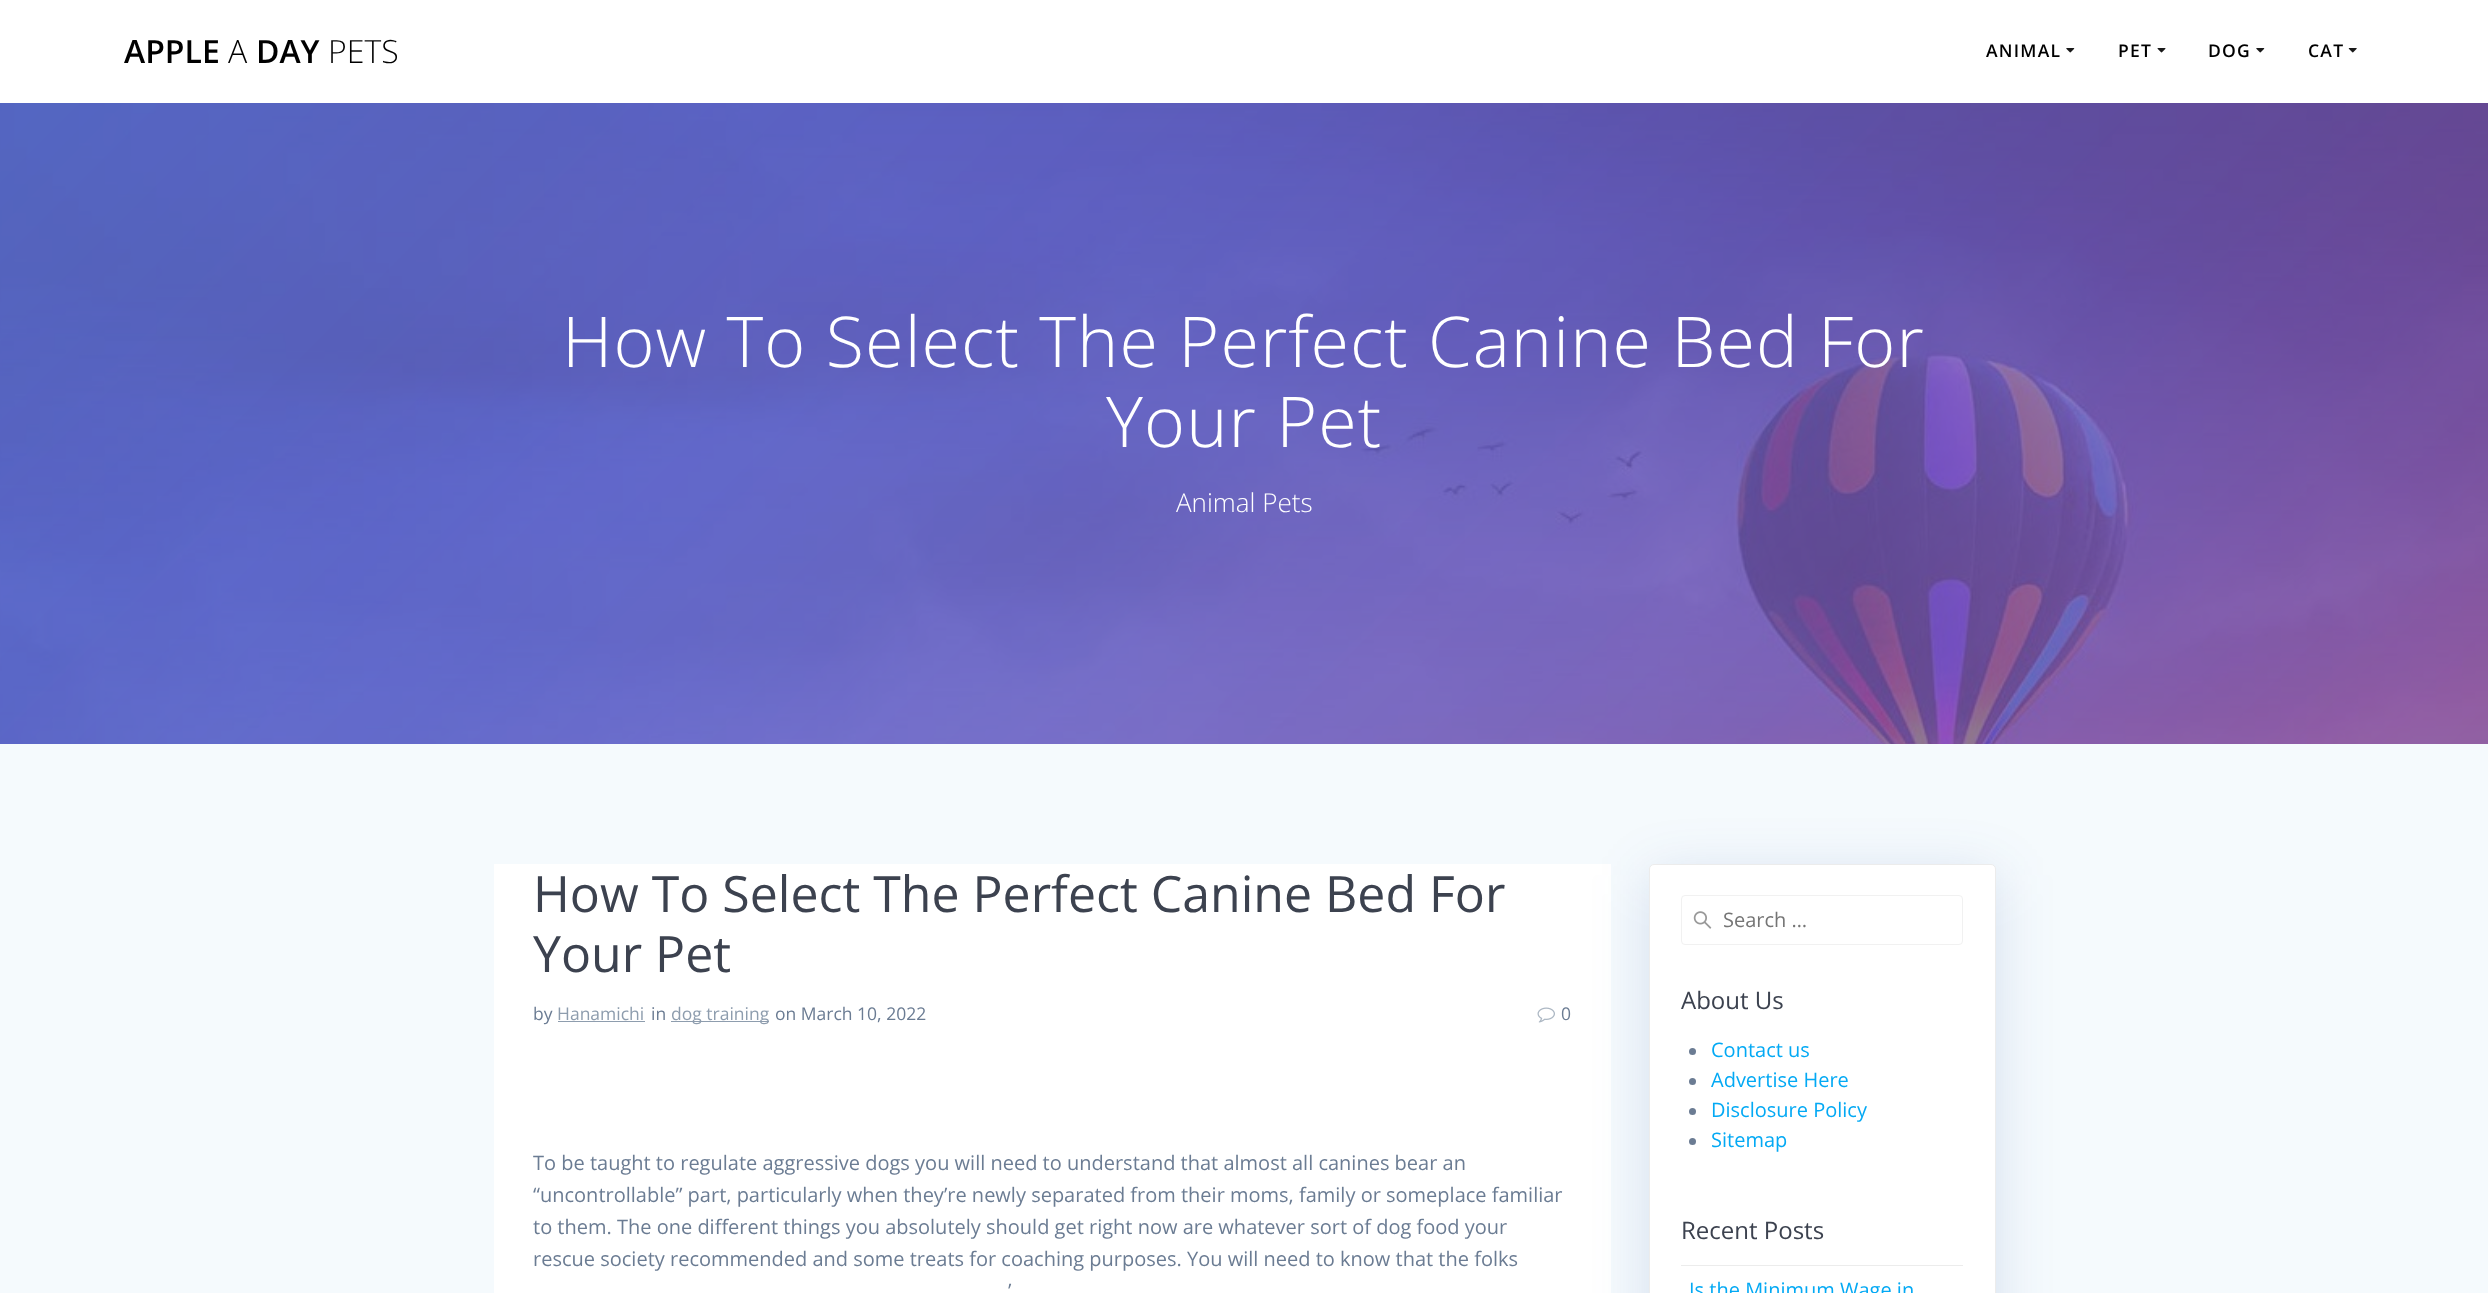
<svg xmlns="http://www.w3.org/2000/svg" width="2488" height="1293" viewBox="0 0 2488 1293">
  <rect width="100%" height="100%" fill="rgb(255,255,255)"/>
  <text x="124" y="63" font-family="Open Sans" font-size="32" font-weight="600" fill="rgb(0,0,0)">APPLE</text>
  <text x="228" y="63" font-family="Open Sans" font-size="32" font-weight="300" fill="rgb(0,0,0)">A</text>
  <text x="256" y="63" font-family="Open Sans" font-size="32" font-weight="600" fill="rgb(0,0,0)">DAY</text>
  <text x="328" y="63" font-family="Open Sans" font-size="32" font-weight="300" fill="rgb(0,0,0)">PETS</text>
  <text x="1986" y="57" font-family="Open Sans" font-size="17.5" font-weight="600" letter-spacing="1.25" fill="rgb(0,0,0)">ANIMAL</text>
  <image x="2066" y="48" width="9" height="5" href="pic1.png"/>
  <text x="2118" y="57" font-family="Open Sans" font-size="17.5" font-weight="600" letter-spacing="1.25" fill="rgb(0,0,0)">PET</text>
  <image x="2157" y="48" width="9" height="5" href="pic2.png"/>
  <text x="2208" y="57" font-family="Open Sans" font-size="17.5" font-weight="600" letter-spacing="1.25" fill="rgb(0,0,0)">DOG</text>
  <image x="2256" y="48" width="9" height="5" href="pic1.png"/>
  <text x="2308" y="57" font-family="Open Sans" font-size="17.5" font-weight="600" letter-spacing="1.25" fill="rgb(0,0,0)">CAT</text>
  <image x="2348" y="48" width="9" height="5" href="pic3.png"/>
  <image x="0" y="103" width="2488" height="641" href="pic4.png"/>
  <g font-family="Open Sans" font-size="70" font-weight="300" letter-spacing="1.1" fill="rgb(255,255,255)">
    <text x="562" y="367">How To Select The Perfect Canine Bed For</text>
    <text x="1106" y="447">Your Pet</text>
  </g>
  <text x="1176" y="512" font-family="Open Sans" font-size="26" font-weight="300" fill="rgb(255,255,255)">Animal Pets</text>
  <rect x="0" y="744" width="2488" height="549" fill="rgb(245,250,253)"/>
  <rect x="494" y="864" width="1117" height="429" fill="rgb(255,255,255)"/>
  <g font-family="Open Sans" font-size="50" fill="rgb(60,66,79)">
    <text>
      <tspan x="533" y="912">How To Select The Perfect Canine Bed For</tspan>
      <tspan x="533" y="972">Your Pet</tspan>
    </text>
  </g>
  <text x="533" y="1020" font-family="Open Sans" font-size="17.5" fill="rgb(107,124,147)">by</text>
  <text x="557" y="1020" font-family="Open Sans" font-size="17.5" fill="rgb(142,157,174)">Hanamichi</text>
  <rect x="558" y="1021" width="87" height="1" fill="rgb(142,157,174)"/>
  <text x="651" y="1020" font-family="Open Sans" font-size="17.5" fill="rgb(107,124,147)">in</text>
  <rect x="671" y="1021" width="98" height="1" fill="rgb(142,157,174)"/>
  <text x="671" y="1020" font-family="Open Sans" font-size="17.5" fill="rgb(142,157,174)">dog training</text>
  <text x="775" y="1020" font-family="Open Sans" font-size="17.5" fill="rgb(107,124,147)">on March 10, 2022</text>
  <image x="1537" y="1007" width="18" height="16" href="pic5.png"/>
  <text x="1561" y="1020" font-family="Open Sans" font-size="17.5" fill="rgb(107,124,147)">0</text>
  <g font-family="Open Sans" font-size="20" fill="rgb(107,124,147)">
    <text>
      <tspan x="533" y="1170">To be taught to regulate aggressive dogs you will need to understand that almost all canines bear an</tspan>
      <tspan x="533" y="1202">“uncontrollable” part, particularly when they’re newly separated from their moms, family or someplace familiar</tspan>
      <tspan x="533" y="1234">to them. The one different things you absolutely should get right now are whatever sort of dog food your</tspan>
      <tspan x="533" y="1266">rescue society recommended and some treats for coaching purposes. You will need to know that the folks</tspan>
    </text>
    <text x="1008" y="1298">’</text>
  </g>
  <rect x="1649" y="875" width="347" height="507" rx="5" fill="rgba(35,69,152,0.15)" filter="blur(28px)"/>
  <rect x="1649.5" y="864.5" width="346" height="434" rx="4.5" fill="rgb(255,255,255)" stroke="rgb(236,236,236)"/>
  <image x="1693" y="911" width="19" height="18" href="pic6.png"/>
  <rect x="1681.5" y="895.5" width="281" height="49" rx="3.5" fill="none" stroke="rgb(241,241,241)"/>
  <text x="1723" y="927" font-family="Open Sans" font-size="20" fill="rgb(117,117,117)">Search …</text>
  <text x="1681" y="1009" font-family="Open Sans" font-size="24" fill="rgb(60,66,79)">About Us</text>
  <circle cx="1692.5" cy="1051.5" r="3.5" fill="rgb(107,124,147)"/>
  <text x="1711" y="1057" font-family="Open Sans" font-size="20" fill="rgb(3,169,244)">Contact us</text>
  <circle cx="1692.5" cy="1081.5" r="3.5" fill="rgb(107,124,147)"/>
  <text x="1711" y="1087" font-family="Open Sans" font-size="20" fill="rgb(3,169,244)">Advertise Here</text>
  <circle cx="1692.5" cy="1111.5" r="3.5" fill="rgb(107,124,147)"/>
  <text x="1711" y="1117" font-family="Open Sans" font-size="20" fill="rgb(3,169,244)">Disclosure Policy</text>
  <circle cx="1692.5" cy="1141.5" r="3.5" fill="rgb(107,124,147)"/>
  <text x="1711" y="1147" font-family="Open Sans" font-size="20" fill="rgb(3,169,244)">Sitemap</text>
  <text x="1681" y="1239" font-family="Open Sans" font-size="24" fill="rgb(60,66,79)">Recent Posts</text>
  <rect x="1681" y="1265" width="282" height="1" fill="rgb(236,236,236)"/>
  <text x="1689" y="1297" font-family="Open Sans" font-size="20" fill="rgb(3,169,244)">Is the Minimum Wage in</text>
</svg>
